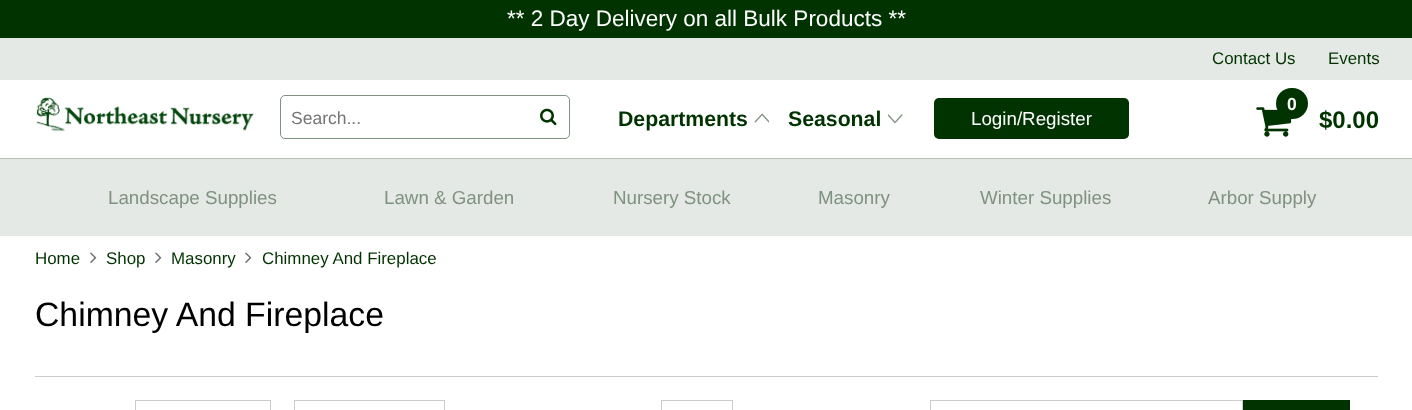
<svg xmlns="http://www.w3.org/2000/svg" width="1412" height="410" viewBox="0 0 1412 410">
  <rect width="100%" height="100%" fill="rgb(255,255,255)"/>
  <rect x="0" y="0" width="1412" height="38" fill="rgb(0,51,0)"/>
  <text x="507" y="26" font-family="Liberation Sans" font-size="22.5" fill="rgb(255,255,255)">** 2 Day Delivery on all Bulk Products **</text>
  <rect x="0" y="38" width="1412" height="42" fill="rgb(229,233,229)"/>
  <g font-family="Liberation Sans" font-size="16.9" fill="rgb(0,51,0)">
    <text x="1212" y="64">Contact Us</text>
    <text x="1328" y="64">Events</text>
  </g>
  <image x="36" y="97" width="218" height="35" href="pic1.png"/>
  <rect x="280.5" y="95.5" width="289" height="43" rx="4.5" fill="none" stroke="rgb(127,145,127)"/>
  <text x="291" y="124" font-family="Liberation Sans" font-size="17.5" fill="rgb(117,117,117)">Search...</text>
  <image x="540" y="108" width="17" height="18" href="pic2.png"/>
  <text x="618" y="126" font-family="Liberation Sans" font-size="21.25" font-weight="bold" fill="rgb(0,51,0)">Departments</text>
  <image x="754" y="113" width="15" height="10" href="pic3.png"/>
  <text x="788" y="126" font-family="Liberation Sans" font-size="21.25" font-weight="bold" fill="rgb(0,51,0)">Seasonal</text>
  <image x="888" y="114" width="15" height="10" href="pic4.png"/>
  <rect x="934" y="98" width="195" height="41" rx="5" fill="rgb(0,51,0)"/>
  <text x="971" y="125" font-family="Liberation Sans" font-size="18.75" fill="rgb(255,255,255)">Login/Register</text>
  <image x="1256" y="107" width="36" height="30" href="pic5.png"/>
  <rect x="1276" y="88" width="32" height="31" rx="15.5" fill="rgb(0,51,0)"/>
  <text x="1287" y="110" font-family="Liberation Sans" font-size="17.5" font-weight="bold" fill="rgb(255,255,255)">0</text>
  <text x="1319" y="128" font-family="Liberation Sans" font-size="24" font-weight="bold" fill="rgb(0,51,0)">$0.00</text>
  <rect x="0" y="159" width="1412" height="77" fill="rgb(229,233,229)"/>
  <rect x="0" y="158" width="1412" height="1" fill="rgb(183,194,183)"/>
  <g font-family="Liberation Sans" font-size="18.75" fill="rgb(127,145,127)">
    <text x="108" y="204">Landscape Supplies</text>
    <text x="384" y="204">Lawn &amp; Garden</text>
    <text x="613" y="204">Nursery Stock</text>
    <text x="818" y="204">Masonry</text>
    <text x="980" y="204">Winter Supplies</text>
    <text x="1208" y="204">Arbor Supply</text>
  </g>
  <text x="35" y="264" font-family="Liberation Sans" font-size="16.9" fill="rgb(0,51,0)">Home</text>
  <image x="90" y="252" width="7" height="11" href="pic6.png"/>
  <text x="106" y="264" font-family="Liberation Sans" font-size="16.9" fill="rgb(0,51,0)">Shop</text>
  <image x="155" y="252" width="7" height="11" href="pic6.png"/>
  <text x="171" y="264" font-family="Liberation Sans" font-size="16.9" fill="rgb(0,51,0)">Masonry</text>
  <image x="245" y="252" width="7" height="11" href="pic6.png"/>
  <text x="262" y="264" font-family="Liberation Sans" font-size="16.9" fill="rgb(0,51,0)">Chimney And Fireplace</text>
  <text x="35" y="326" font-family="Liberation Sans" font-size="33.75" fill="rgb(0,0,0)">Chimney And Fireplace</text>
  <rect x="35" y="376" width="1343" height="1" fill="rgb(204,204,204)"/>
  <rect x="135.5" y="400.5" width="135" height="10" fill="none" stroke="rgb(204,204,204)"/>
  <rect x="294.5" y="400.5" width="150" height="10" fill="none" stroke="rgb(204,204,204)"/>
  <rect x="661.5" y="400.5" width="71" height="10" fill="none" stroke="rgb(204,204,204)"/>
  <rect x="930.5" y="400.5" width="312" height="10" fill="none" stroke="rgb(204,204,204)"/>
  <rect x="1243" y="400" width="107" height="10" fill="rgb(0,51,0)"/>
</svg>
